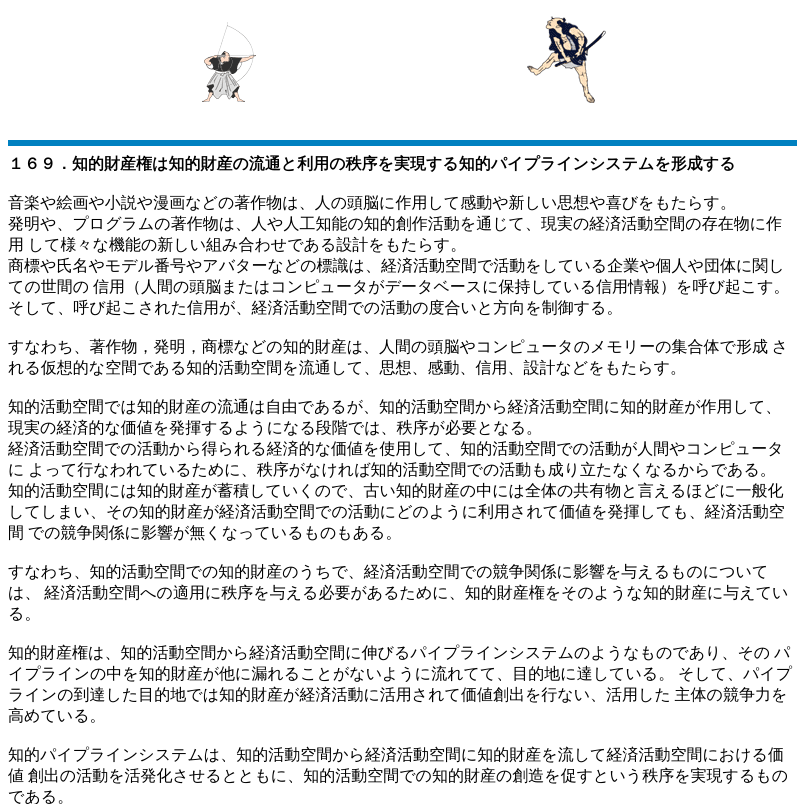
import math
import cairo

surface = cairo.ImageSurface(cairo.FORMAT_RGB24, 805, 804)
c = cairo.Context(surface)
options = cairo.FontOptions()
options.set_hint_metrics(cairo.HINT_METRICS_OFF)
options.set_hint_style(cairo.HINT_STYLE_NONE)
c.set_font_options(options)
c.set_miter_limit(4)
def C(code):
 c.set_source_rgb(*(v / 255 for v in bytes.fromhex(code[-6:])))
def F(family, size, italic, bold):
 c.select_font_face(family, cairo.FONT_SLANT_ITALIC if italic else cairo.FONT_SLANT_NORMAL, cairo.FONT_WEIGHT_BOLD if bold else cairo.FONT_WEIGHT_NORMAL)
 c.set_font_size(size)
def T(x, y, s):
 c.move_to(x, y)
 c.show_text(s)
def L(x, y, s, letter, word):
 c.move_to(x, y)
 for ch in s:
  c.show_text(ch)
  c.rel_move_to(letter + word * (ch == ' '), 0)
def R(x, y, w, h):
 c.rectangle(x, y, w, h)
 c.fill()
def I(path, x, y, w, h):
 c.save()
 c.set_source_surface(cairo.ImageSurface.create_from_png(path), x, y)
 c.rectangle(x, y, w, h)
 c.fill()
 c.restore()
C('ffffff')
c.paint()
I('1.png',202,22,54,80)
I('2.png',527,16,79,87)
C('0080c0')
R(8,140,789,6)
F('WenQuanYi Zen Hei',16,0,1)
C('000000')
T(8,169,'１６９．知的財産権は知的財産の流通と利用の秩序を実現する知的パイプラインシステムを形成する')
F('WenQuanYi Zen Hei Medium',16,0,0)
T(8,208,'音楽や絵画や小説や漫画などの著作物は、人の頭脳に作用して感動や新しい思想や喜びをもたらす。')
T(8,229,'発明や、プログラムの著作物は、人や人工知能の知的創作活動を通じて、現実の経済活動空間の存在物に作')
L(8,250,'用 して様々な機能の新しい組み合わせである設計をもたらす。',0,-1)
T(8,271,'商標や氏名やモデル番号やアバターなどの標識は、経済活動空間で活動をしている企業や個人や団体に関し')
L(8,292,'ての世間の 信用（人間の頭脳またはコンピュータがデータベースに保持している信用情報）を呼び起こす。',0,-1)
T(8,313,'そして、呼び起こされた信用が、経済活動空間での活動の度合いと方向を制御する。')
L(8,352,'すなわち、著作物，発明，商標などの知的財産は、人間の頭脳やコンピュータのメモリーの集合体で形成 さ',0,-1)
T(8,373,'れる仮想的な空間である知的活動空間を流通して、思想、感動、信用、設計などをもたらす。')
T(8,412,'知的活動空間では知的財産の流通は自由であるが、知的活動空間から経済活動空間に知的財産が作用して、')
T(8,433,'現実の経済的な価値を発揮するようになる段階では、秩序が必要となる。')
T(8,454,'経済活動空間での活動から得られる経済的な価値を使用して、知的活動空間での活動が人間やコンピュータ')
L(8,475,'に よって行なわれているために、秩序がなければ知的活動空間での活動も成り立たなくなるからである。',0,-1)
T(8,496,'知的活動空間には知的財産が蓄積していくので、古い知的財産の中には全体の共有物と言えるほどに一般化')
T(8,517,'してしまい、その知的財産が経済活動空間での活動にどのように利用されて価値を発揮しても、経済活動空')
L(8,538,'間 での競争関係に影響が無くなっているものもある。',0,-1)
T(8,577,'すなわち、知的活動空間での知的財産のうちで、経済活動空間での競争関係に影響を与えるものについて')
L(8,598,'は、 経済活動空間への適用に秩序を与える必要があるために、知的財産権をそのような知的財産に与えてい',0,-1)
T(8,619,'る。')
L(8,658,'知的財産権は、知的活動空間から経済活動空間に伸びるパイプラインシステムのようなものであり、その パ',0,-1)
L(8,679,'イプラインの中を知的財産が他に漏れることがないように流れてて、目的地に達している。 そして、パイプ',0,-1)
L(8,700,'ラインの到達した目的地では知的財産が経済活動に活用されて価値創出を行ない、活用した 主体の競争力を',0,-1)
T(8,721,'高めている。')
T(8,760,'知的パイプラインシステムは、知的活動空間から経済活動空間に知的財産を流して経済活動空間における価')
L(8,781,'値 創出の活動を活発化させるとともに、知的活動空間での知的財産の創造を促すという秩序を実現するもの',0,-1)
T(8,802,'である。')
surface.write_to_png('o.png')
